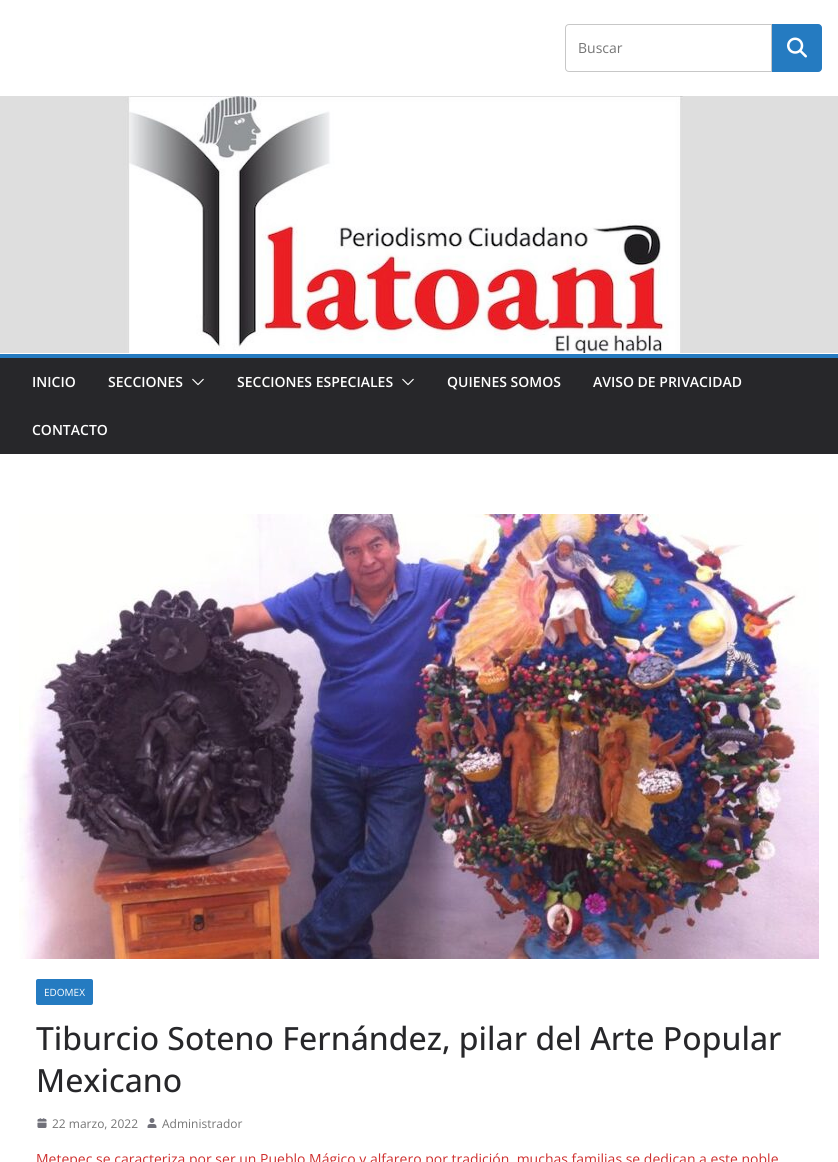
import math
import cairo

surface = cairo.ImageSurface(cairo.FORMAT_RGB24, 838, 1162)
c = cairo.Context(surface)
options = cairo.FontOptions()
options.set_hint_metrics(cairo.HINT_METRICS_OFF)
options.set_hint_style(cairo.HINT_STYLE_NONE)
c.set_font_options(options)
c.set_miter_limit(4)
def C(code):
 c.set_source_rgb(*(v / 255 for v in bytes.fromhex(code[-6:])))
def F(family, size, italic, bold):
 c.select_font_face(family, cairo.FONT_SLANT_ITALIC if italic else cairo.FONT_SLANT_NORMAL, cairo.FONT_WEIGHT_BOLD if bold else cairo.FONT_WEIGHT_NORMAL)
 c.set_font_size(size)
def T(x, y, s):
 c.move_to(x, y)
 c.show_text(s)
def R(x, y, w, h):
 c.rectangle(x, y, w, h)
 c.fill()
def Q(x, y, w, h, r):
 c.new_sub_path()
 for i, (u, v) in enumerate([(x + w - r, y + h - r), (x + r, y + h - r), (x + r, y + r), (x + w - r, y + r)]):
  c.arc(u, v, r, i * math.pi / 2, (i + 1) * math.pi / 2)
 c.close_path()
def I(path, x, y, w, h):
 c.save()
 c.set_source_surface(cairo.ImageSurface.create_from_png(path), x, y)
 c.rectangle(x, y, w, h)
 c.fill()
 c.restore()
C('ffffff')
c.paint()
c.new_path()
c.move_to(569,24.5)
c.line_to(771.5,24.5)
c.line_to(771.5,71.5)
c.line_to(569,71.5)
c.curve_to(567,71.5,565.5,70,565.5,68)
c.line_to(565.5,28)
c.curve_to(565.5,26,567,24.5,569,24.5)
c.close_path()
C('c7c7c7')
c.set_line_width(1)
c.stroke()
F('Open Sans',14,0,0)
C('757575')
T(578,53,'Buscar')
C('257bc1')
c.new_path()
c.move_to(772.5,24.5)
c.line_to(818,24.5)
c.curve_to(820,24.5,821.5,26,821.5,28)
c.line_to(821.5,68)
c.curve_to(821.5,70,820,71.5,818,71.5)
c.line_to(772.5,71.5)
c.close_path()
c.fill_preserve()
c.stroke()
I('1.png',787,37,20,21)
I('2.png',0,96,838,257)
C('27272a')
R(0,358,838,96)
C('257bc1')
R(0,354,838,4)
F('Open Sans SemiBold',14,0,0)
C('ffffff')
T(32,387,'INICIO')
T(108,387,'SECCIONES')
I('3.png',192,378,12,8)
T(237,387,'SECCIONES ESPECIALES')
I('3.png',402,378,12,8)
T(447,387,'QUIENES SOMOS')
T(593,387,'AVISO DE PRIVACIDAD')
T(32,435,'CONTACTO')
I('4.png',19,514,800,445)
C('257bc1')
Q(36,979,57,26,2)
c.fill()
F('Open Sans',10,0,0)
C('ffffff')
T(44,996,'EDOMEX')
F('Open Sans Medium',32,0,0)
C('27272a')
T(36,1050,'Tiburcio Soteno Fernández, pilar del Arte Popular')
T(36,1092,'Mexicano')
I('5.png',37,1118,10,10)
F('Open Sans',12,0,0)
C('757575')
T(52,1128,'22 marzo, 2022')
I('6.png',147,1118,10,10)
T(162,1128,'Administrador')
F('Open Sans',14,0,0)
C('cf2e2e')
T(36,1164,'Metepec se caracteriza por ser un Pueblo Mágico y alfarero por tradición, muchas familias se dedican a este noble')
surface.write_to_png('o.png')
